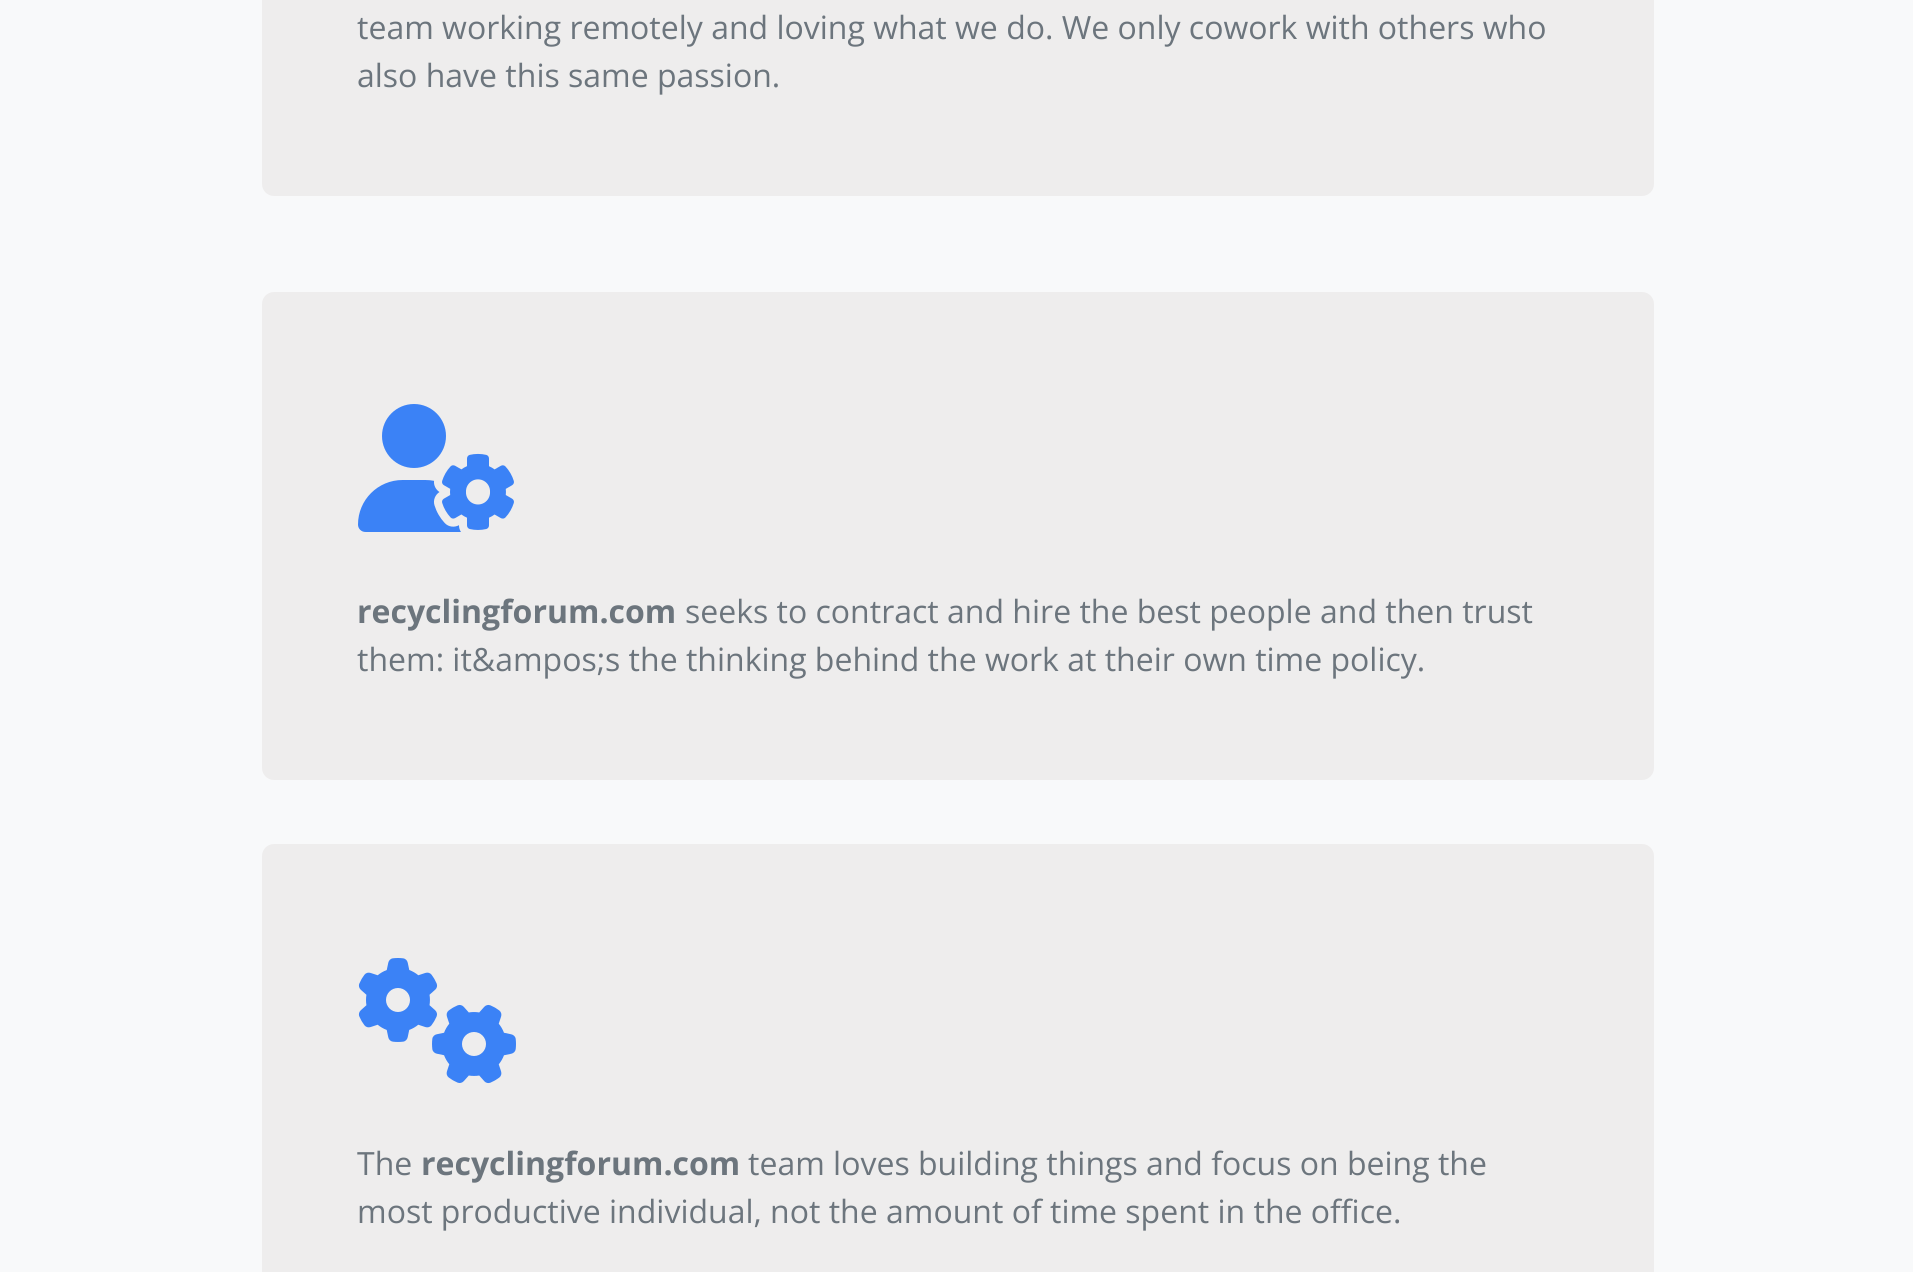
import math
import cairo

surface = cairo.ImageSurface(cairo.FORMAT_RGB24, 1913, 1272)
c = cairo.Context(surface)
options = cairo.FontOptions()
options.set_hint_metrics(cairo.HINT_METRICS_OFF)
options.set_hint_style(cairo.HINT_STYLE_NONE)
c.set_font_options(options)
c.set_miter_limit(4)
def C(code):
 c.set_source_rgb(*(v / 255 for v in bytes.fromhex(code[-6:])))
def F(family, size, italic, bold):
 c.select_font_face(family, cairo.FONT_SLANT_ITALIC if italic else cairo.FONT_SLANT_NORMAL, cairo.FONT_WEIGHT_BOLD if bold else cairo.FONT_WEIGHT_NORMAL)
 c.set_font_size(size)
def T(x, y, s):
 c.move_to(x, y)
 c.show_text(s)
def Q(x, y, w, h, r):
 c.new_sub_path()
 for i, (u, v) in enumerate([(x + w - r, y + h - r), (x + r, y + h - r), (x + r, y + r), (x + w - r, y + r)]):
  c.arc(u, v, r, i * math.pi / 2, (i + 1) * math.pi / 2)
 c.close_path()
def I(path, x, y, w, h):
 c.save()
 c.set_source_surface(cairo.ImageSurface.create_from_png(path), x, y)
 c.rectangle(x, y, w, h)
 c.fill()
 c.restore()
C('f8f9fa')
c.paint()
C('eeeded')
Q(262,-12,1392,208,12)
c.fill()
F('Open Sans',32,0,0)
C('6c757d')
T(357,39,'team working remotely and loving what we do. We only cowork with others who')
T(357,87,'also have this same passion.')
C('eeeded')
Q(262,292,1392,488,12)
c.fill()
I('1.png',358,404,156,128)
F('Open Sans',32,0,1)
C('6c757d')
T(357,623,'recyclingforum.com')
F('Open Sans',32,0,0)
T(685,623,'seeks to contract and hire the best people and then trust')
T(357,671,'them: it&ampos;s the thinking behind the work at their own time policy.')
C('eeeded')
Q(262,844,1392,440,12)
c.fill()
I('2.png',358,958,158,126)
C('6c757d')
T(357,1175,'The')
F('Open Sans',32,0,1)
T(421,1175,'recyclingforum.com')
F('Open Sans',32,0,0)
T(748,1175,'team loves building things and focus on being the')
T(357,1223,'most productive individual, not the amount of time spent in the office.')
surface.write_to_png('o.png')
